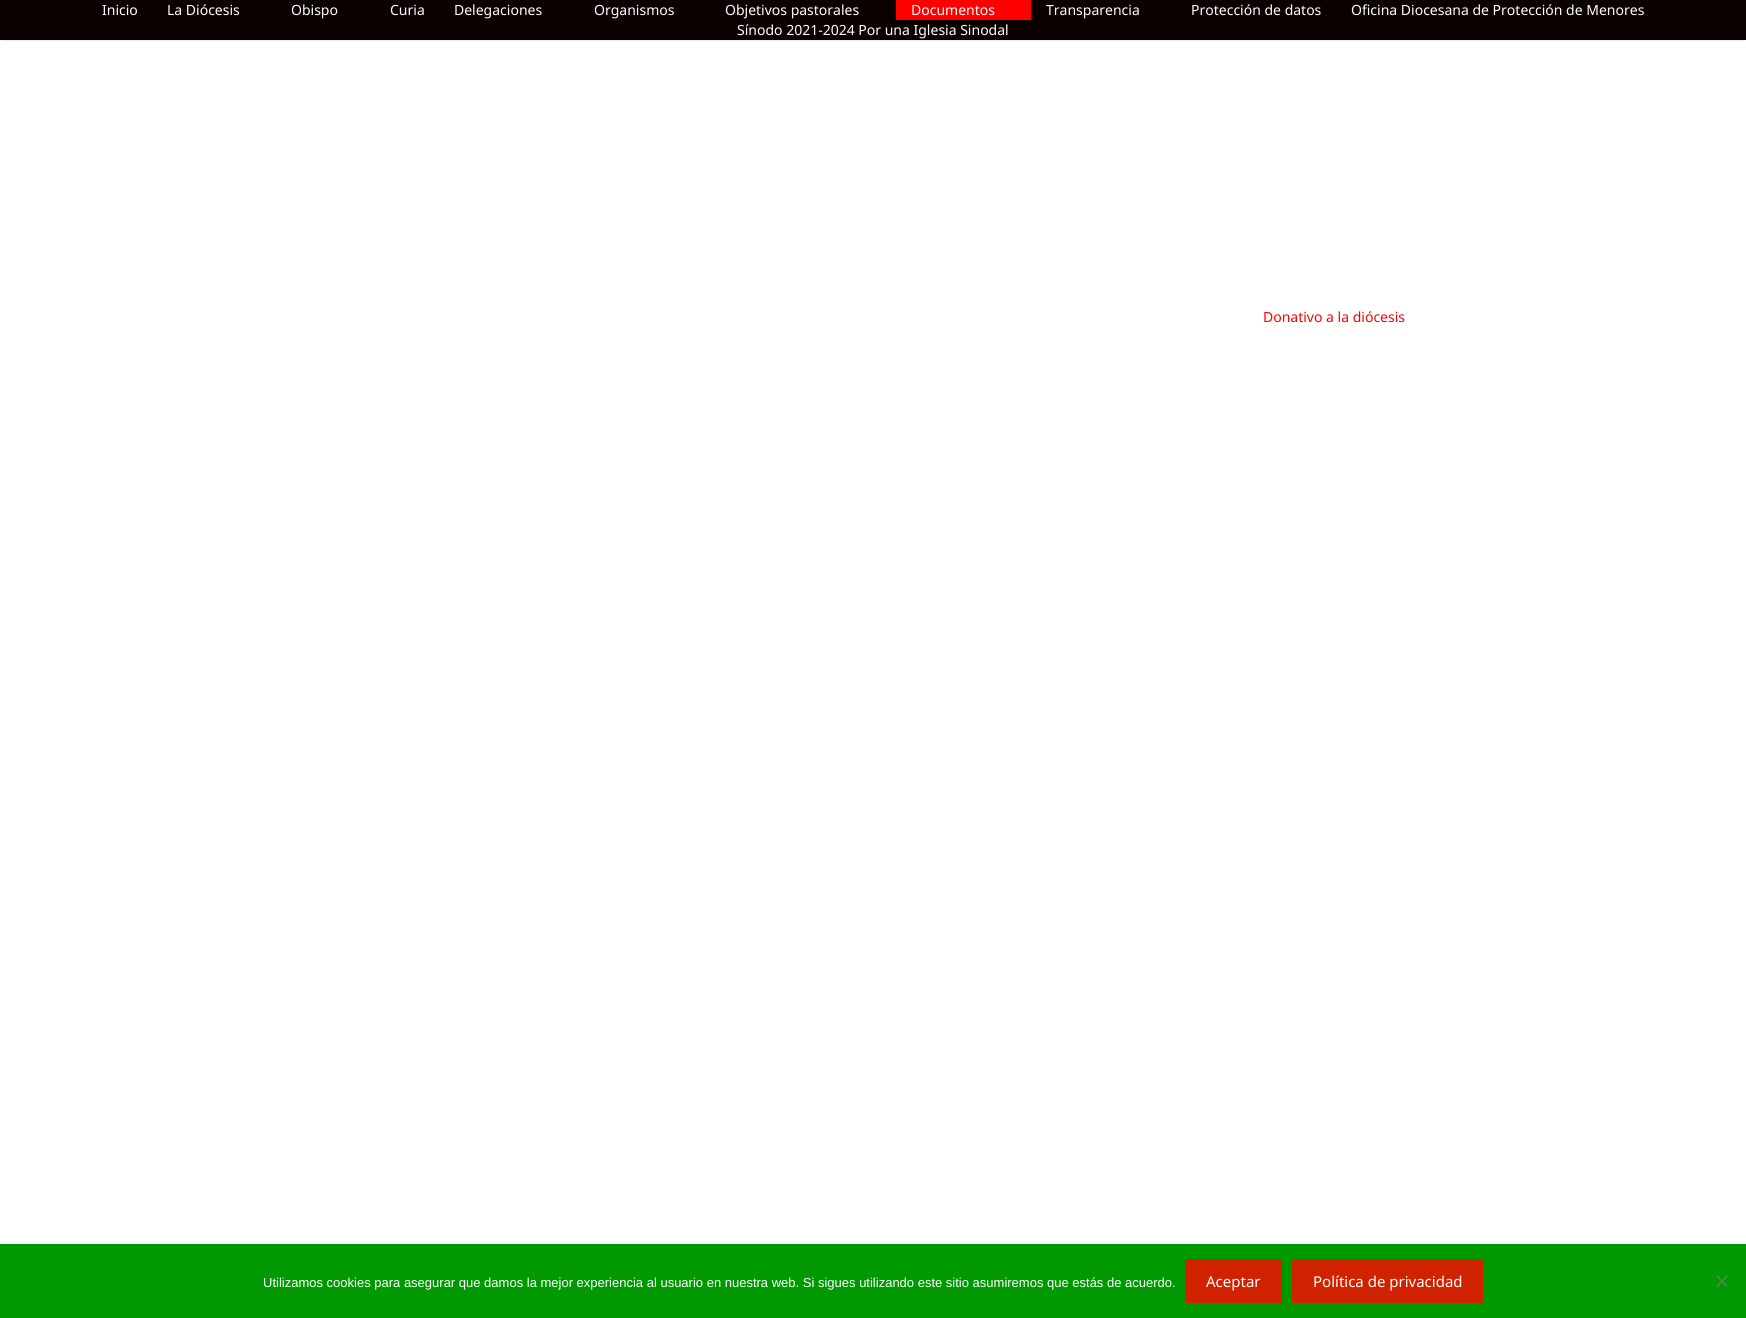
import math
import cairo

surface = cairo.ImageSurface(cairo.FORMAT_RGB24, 1746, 1318)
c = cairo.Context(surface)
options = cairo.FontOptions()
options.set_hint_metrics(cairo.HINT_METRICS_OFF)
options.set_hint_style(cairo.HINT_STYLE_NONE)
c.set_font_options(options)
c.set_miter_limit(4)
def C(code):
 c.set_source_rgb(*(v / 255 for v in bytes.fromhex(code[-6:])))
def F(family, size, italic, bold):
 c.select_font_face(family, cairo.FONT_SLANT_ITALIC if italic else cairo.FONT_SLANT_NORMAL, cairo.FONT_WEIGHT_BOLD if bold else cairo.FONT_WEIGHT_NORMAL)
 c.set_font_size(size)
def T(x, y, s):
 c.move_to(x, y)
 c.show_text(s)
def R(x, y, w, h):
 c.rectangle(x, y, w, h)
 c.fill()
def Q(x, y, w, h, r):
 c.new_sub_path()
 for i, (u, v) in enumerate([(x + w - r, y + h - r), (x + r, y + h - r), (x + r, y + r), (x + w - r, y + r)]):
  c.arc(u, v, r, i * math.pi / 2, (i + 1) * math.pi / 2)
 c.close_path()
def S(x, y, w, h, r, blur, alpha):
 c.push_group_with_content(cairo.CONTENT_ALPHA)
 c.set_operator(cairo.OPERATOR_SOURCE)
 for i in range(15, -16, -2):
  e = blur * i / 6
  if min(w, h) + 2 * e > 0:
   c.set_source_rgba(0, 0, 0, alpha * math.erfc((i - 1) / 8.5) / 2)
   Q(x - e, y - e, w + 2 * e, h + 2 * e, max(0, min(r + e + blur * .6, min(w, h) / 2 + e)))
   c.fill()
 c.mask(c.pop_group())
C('ffffff')
c.paint()
C('000000')
S(2,4,1742,36,0,1,.2)
C('0a0100')
R(0,0,1746,40)
F('Noto Sans',14,0,0)
C('ffffff')
T(102,15,'Inicio')
T(167,15,'La Diócesis')
T(291,15,'Obispo')
T(390,15,'Curia')
T(454,15,'Delegaciones')
T(594,15,'Organismos')
T(725,15,'Objetivos pastorales')
C('ff0000')
R(896,0,135,20)
C('ffffff')
T(911,15,'Documentos')
T(1046,15,'Transparencia')
T(1191,15,'Protección de datos')
T(1351,15,'Oficina Diocesana de Protección de Menores')
T(737,35,'Sínodo 2021-2024 Por una Iglesia Sinodal')
C('ff0000')
T(1263,322,'Donativo a la diócesis')
C('009902')
R(0,1244,1746,74)
F('Liberation Sans',13,0,0)
C('ffffff')
T(263,1287,'Utilizamos cookies para asegurar que damos la mejor experiencia al usuario en nuestra web. Si sigues utilizando este sitio asumiremos que estás de acuerdo.')
C('d12200')
R(1185,1259,97,44)
F('Noto Sans',15,0,0)
C('ffffff')
T(1206,1287,'Aceptar')
C('d12200')
R(1292,1259,191,44)
C('ffffff')
T(1313,1287,'Política de privacidad')
C('408d41')
c.new_path()
c.move_to(1726.5,1275)
c.line_to(1728,1276.5)
c.line_to(1717.5,1287.5)
c.line_to(1716,1286)
c.close_path()
c.fill()
c.new_path()
c.move_to(1716,1276.5)
c.line_to(1717.5,1275)
c.line_to(1728,1286)
c.line_to(1726.5,1287.5)
c.close_path()
c.fill()
surface.write_to_png('o.png')
